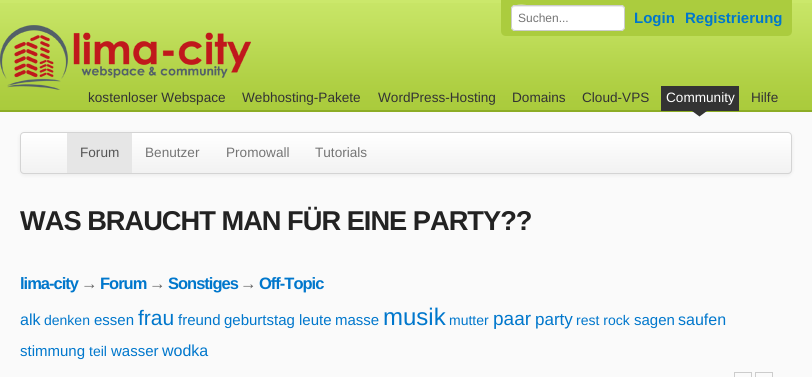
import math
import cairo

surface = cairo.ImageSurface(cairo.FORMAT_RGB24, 812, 377)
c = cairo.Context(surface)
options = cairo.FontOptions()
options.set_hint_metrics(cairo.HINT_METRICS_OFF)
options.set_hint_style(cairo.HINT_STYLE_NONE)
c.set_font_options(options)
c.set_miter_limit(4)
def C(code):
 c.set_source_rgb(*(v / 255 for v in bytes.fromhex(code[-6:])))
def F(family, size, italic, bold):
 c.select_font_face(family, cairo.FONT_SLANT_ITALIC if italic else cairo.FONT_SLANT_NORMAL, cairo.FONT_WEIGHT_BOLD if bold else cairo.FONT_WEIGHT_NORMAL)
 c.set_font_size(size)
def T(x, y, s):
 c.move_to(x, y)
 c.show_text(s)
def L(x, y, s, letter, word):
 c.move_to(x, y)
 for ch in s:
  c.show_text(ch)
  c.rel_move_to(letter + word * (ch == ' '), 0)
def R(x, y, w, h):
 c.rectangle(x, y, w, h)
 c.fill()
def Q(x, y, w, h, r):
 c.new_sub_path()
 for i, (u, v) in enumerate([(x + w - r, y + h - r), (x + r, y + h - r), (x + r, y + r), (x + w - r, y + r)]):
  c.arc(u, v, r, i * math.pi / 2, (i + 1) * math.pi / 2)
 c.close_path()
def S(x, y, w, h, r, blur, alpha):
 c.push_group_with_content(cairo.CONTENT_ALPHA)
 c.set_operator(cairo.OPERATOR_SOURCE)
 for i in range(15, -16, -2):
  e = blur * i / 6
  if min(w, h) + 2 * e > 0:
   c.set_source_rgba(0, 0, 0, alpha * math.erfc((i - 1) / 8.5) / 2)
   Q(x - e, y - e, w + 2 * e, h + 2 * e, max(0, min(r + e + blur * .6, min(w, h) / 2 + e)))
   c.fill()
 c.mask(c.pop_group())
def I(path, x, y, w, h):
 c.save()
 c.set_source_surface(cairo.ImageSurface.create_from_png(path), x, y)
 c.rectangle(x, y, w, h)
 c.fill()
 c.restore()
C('cbe86b')
c.paint()
I('1.png',0,3,812,107)
C('8dad25')
R(0,110,812,2)
C('abcc3e')
c.new_path()
c.move_to(501,0)
c.line_to(792,0)
c.line_to(792,31)
c.curve_to(792,34,790,36,787,36)
c.line_to(506,36)
c.curve_to(503,36,501,34,501,31)
c.close_path()
c.fill()
C('ffffff')
Q(511,5,114,26,4)
c.fill()
C('ececec')
c.new_path()
c.move_to(515,7)
c.line_to(621,7)
c.curve_to(623,7,624,8,624,10)
c.curve_to(624,8,623,6,621,6)
c.line_to(533,6)
c.curve_to(531,6,512,1,512,10)
c.curve_to(512,8,513,7,515,7)
c.close_path()
c.fill()
Q(511.5,5.5,113,25,3.5)
C('cccccc')
c.set_line_width(1)
c.stroke()
F('Liberation Sans',12,0,0)
C('757575')
T(518,22,'Suchen...')
F('Liberation Sans',15,0,1)
C('0077cc')
T(634,23,'Login')
T(685,23,'Registrierung')
I('2.png',0,25,251,65)
F('Liberation Sans',13.6,0,0)
C('333333')
T(88,102,'kostenloser Webspace')
T(242,102,'Webhosting-Pakete')
T(378,102,'WordPress-Hosting')
T(512,102,'Domains')
T(582,102,'Cloud-VPS')
C('fafafa')
R(0,112,812,265)
I('3.png',692,111,15,6)
C('333333')
R(661,86,78,25)
C('ffffff')
T(666,102,'Community')
C('333333')
T(751,102,'Hilfe')
C('000000')
S(20,133,772,42,4,2,.07)
c.save()
Q(20,132,772,42,4)
c.clip()
gradient = cairo.LinearGradient(406,133,406,173)
gradient.add_color_stop_rgba(0,1,1,1,1)
gradient.add_color_stop_rgba(1,0.949,0.949,0.949,1)
c.set_source(gradient)
R(20,133,772,40)
c.restore()
Q(20.5,132.5,771,41,3.5)
C('d4d4d4')
c.stroke()
C('e6e6e6')
R(67,133,65,40)
C('555555')
T(80,157,'Forum')
C('757575')
T(145,157,'Benutzer')
T(226,157,'Promowall')
T(315,157,'Tutorials')
F('Liberation Sans',27.25,0,1)
C('222222')
L(20,230,'WAS BRAUCHT MAN FÜR EINE PARTY??',-1,0)
F('Liberation Sans',16.5,0,1)
C('0077cc')
L(20,289,'lima-city',-1,0)
C('666666')
L(81,289,'→',-1,0)
C('0077cc')
L(100,289,'Forum',-1,0)
C('666666')
L(149,289,'→',-1,0)
C('0077cc')
L(168,289,'Sonstiges',-1,0)
C('666666')
L(240,289,'→',-1,0)
C('0077cc')
L(259,289,'Off-Topic',-1,0)
F('Liberation Sans',16,0,0)
T(20,325,'alk')
F('Liberation Sans',14,0,0)
T(44,325,'denken')
F('Liberation Sans',15,0,0)
T(94,325,'essen')
F('Liberation Sans',21,0,0)
T(138,325,'frau')
F('Liberation Sans',15,0,0)
T(178,325,'freund')
T(224,325,'geburtstag')
T(299,325,'leute')
T(335,325,'masse')
F('Liberation Sans',24,0,0)
T(383,325,'musik')
F('Liberation Sans',14,0,0)
T(449,325,'mutter')
F('Liberation Sans',19,0,0)
T(493,325,'paar')
F('Liberation Sans',17,0,0)
T(535,325,'party')
F('Liberation Sans',14,0,0)
T(576,325,'rest rock')
F('Liberation Sans',15,0,0)
T(634,325,'sagen')
F('Liberation Sans',16,0,0)
T(678,325,'saufen')
F('Liberation Sans',15,0,0)
T(20,356,'stimmung')
F('Liberation Sans',14,0,0)
T(89,356,'teil')
F('Liberation Sans',15,0,0)
T(111,356,'wasser')
F('Liberation Sans',16,0,0)
T(162,356,'wodka')
c.rectangle(734.5,372.5,17,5)
C('cccccc')
c.stroke()
c.rectangle(755.5,372.5,17,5)
c.stroke()
surface.write_to_png('o.png')
